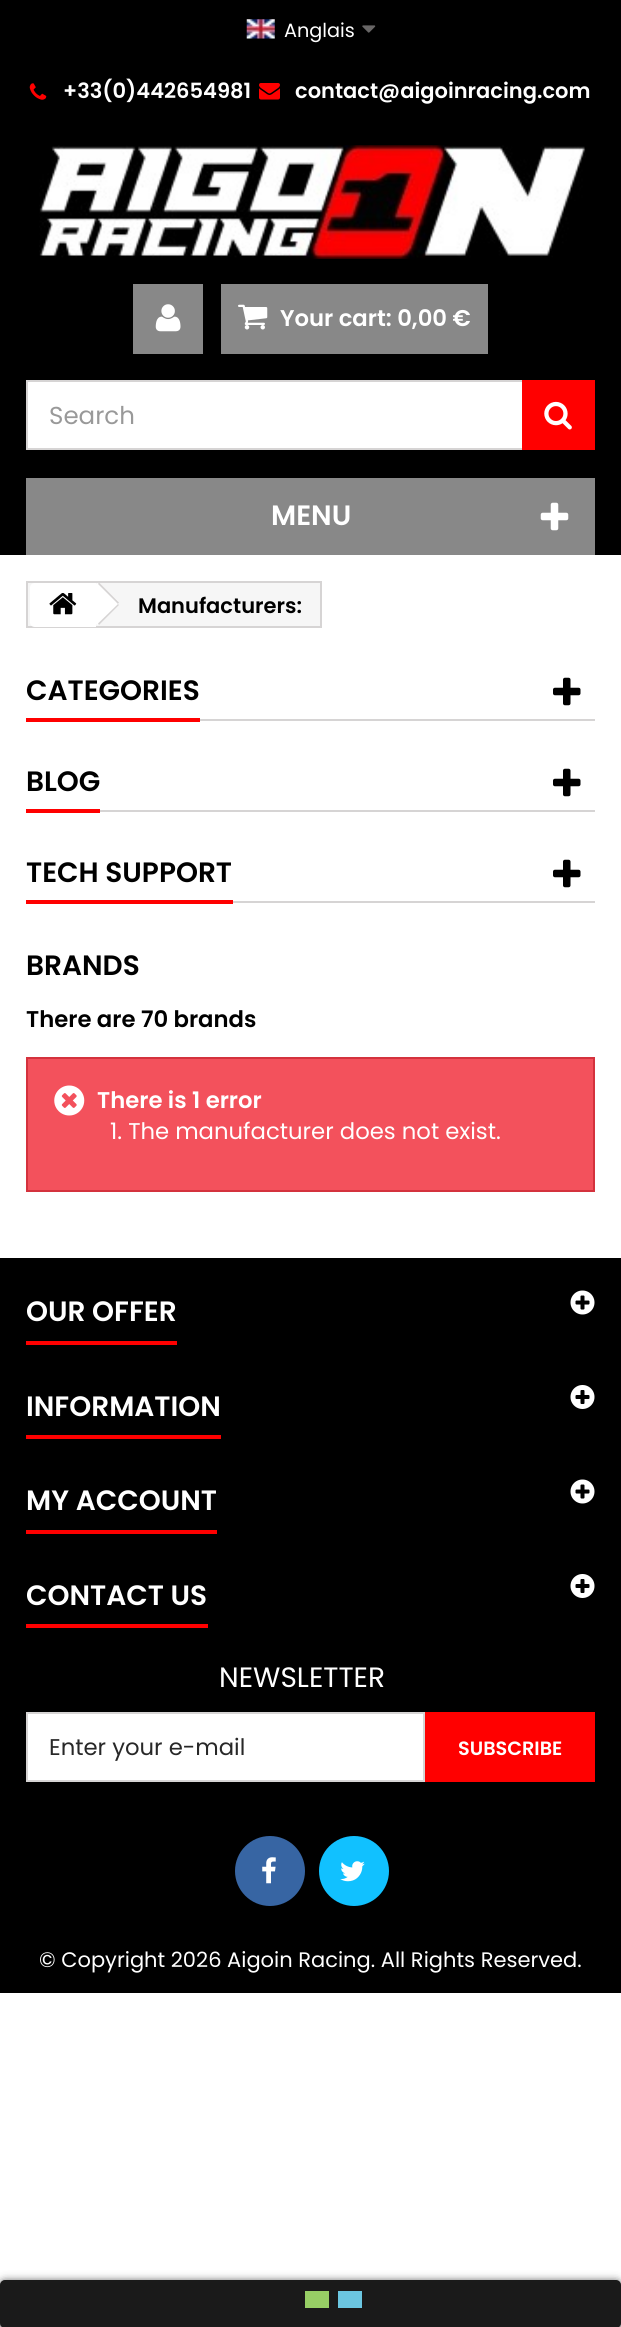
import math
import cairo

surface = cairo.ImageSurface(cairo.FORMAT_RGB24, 621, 2327)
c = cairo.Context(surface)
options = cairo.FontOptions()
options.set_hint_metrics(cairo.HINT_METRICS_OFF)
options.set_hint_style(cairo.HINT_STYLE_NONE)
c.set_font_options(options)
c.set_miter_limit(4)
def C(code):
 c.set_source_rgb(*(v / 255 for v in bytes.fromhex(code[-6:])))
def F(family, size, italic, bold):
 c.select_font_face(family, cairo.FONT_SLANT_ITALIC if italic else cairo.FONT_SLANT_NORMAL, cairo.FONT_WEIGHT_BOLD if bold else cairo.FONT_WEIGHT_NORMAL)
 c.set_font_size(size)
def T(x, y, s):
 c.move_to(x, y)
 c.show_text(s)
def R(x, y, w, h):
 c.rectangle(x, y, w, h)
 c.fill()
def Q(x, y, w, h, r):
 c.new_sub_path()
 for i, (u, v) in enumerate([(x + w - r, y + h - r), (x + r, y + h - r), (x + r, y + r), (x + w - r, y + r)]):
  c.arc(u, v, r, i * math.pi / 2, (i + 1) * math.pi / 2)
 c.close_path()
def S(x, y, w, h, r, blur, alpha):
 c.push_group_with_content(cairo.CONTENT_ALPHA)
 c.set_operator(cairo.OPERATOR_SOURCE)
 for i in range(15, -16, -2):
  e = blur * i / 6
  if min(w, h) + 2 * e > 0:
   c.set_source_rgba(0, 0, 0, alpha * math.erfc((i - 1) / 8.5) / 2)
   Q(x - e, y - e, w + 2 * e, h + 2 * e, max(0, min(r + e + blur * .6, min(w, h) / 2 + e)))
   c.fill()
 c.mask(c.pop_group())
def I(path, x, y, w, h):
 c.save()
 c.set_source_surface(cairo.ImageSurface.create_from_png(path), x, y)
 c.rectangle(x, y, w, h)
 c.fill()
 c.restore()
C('ffffff')
c.paint()
C('000000')
R(0,0,621,555)
I('1.png',246,19,29,20)
F('Poppins',19.25,0,0)
C('ffffff')
T(284,37,'Anglais')
I('2.png',362,25,14,8)
I('3.png',29,83,18,17)
F('Poppins SemiBold',21,0,0)
T(63,98,'+33(0)442654981')
I('4.png',259,83,21,17)
T(295,98,'contact@aigoinracing.com')
I('5.png',39,145,547,114)
C('888888')
R(133,284,70,70)
I('6.png',155,304,26,28)
R(221,284,267,70)
I('7.png',238,304,30,26)
F('Poppins SemiBold',22.75,0,0)
C('ffffff')
T(280,326,'Your cart: 0,00 €')
R(28,382,494,66)
c.rectangle(27,381,567,68)
C('d6d4d4')
c.stroke()
F('Poppins',24.5,0,0)
C('999999')
T(49,424,'Search')
C('ff0000')
R(522,380,73,70)
I('8.png',544,401,28,29)
C('1a1a1a')
S(0,2282,621,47,5,4.5,1)
C('1a1a1a')
Q(1,2281,619,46,4)
c.fill_preserve()
c.stroke()
C('97ce65')
R(305,2291,24,17)
C('6bc6e1')
R(338,2291,24,17)
C('888888')
R(26,478,569,77)
F('Poppins SemiBold',28,0,0)
C('ffffff')
T(271,525,'MENU')
I('9.png',540,502,29,29)
C('f6f6f6')
c.rectangle(27,582,294,45)
c.fill_preserve()
C('d6d4d4')
c.stroke()
C('ffffff')
c.new_path()
c.move_to(35,583)
c.line_to(96,583)
c.line_to(96,627)
c.line_to(35,627)
c.curve_to(32,627,30,625,30,622)
c.line_to(30,588)
c.curve_to(30,585,32,583,35,583)
c.close_path()
c.fill()
I('10.png',49,593,28,22)
c.new_path()
c.move_to(100,584)
c.line_to(118,601)
c.curve_to(119,603,119,605,118,606)
c.line_to(100,624)
c.curve_to(99,625,97,625,96,624)
c.line_to(78,606)
c.curve_to(77,605,77,603,78,601)
c.line_to(96,584)
c.curve_to(97,583,99,583,100,584)
c.close_path()
c.fill()
C('d6d4d4')
c.new_path()
c.move_to(99,582.5)
c.line_to(119,602.5)
c.line_to(118,604)
c.line_to(98,584)
c.close_path()
c.move_to(118,604)
c.line_to(119,605)
c.line_to(99,625)
c.line_to(98,623.5)
c.close_path()
c.fill()
F('Poppins SemiBold',21,0,0)
C('000000')
T(138,613,'Manufacturers:')
C('d6d4d4')
R(200,719,395,2)
C('ff0000')
R(26,718,174,4)
F('Poppins SemiBold',28,0,0)
C('000000')
T(26,700,'CATEGORIES')
I('11.png',553,677,28,29)
C('d6d4d4')
R(100,810,495,2)
C('ff0000')
R(26,809,74,4)
C('000000')
T(26,791,'BLOG')
I('11.png',553,768,28,29)
C('d6d4d4')
R(233,901,362,2)
C('ff0000')
R(26,900,207,4)
C('000000')
T(26,882,'TECH SUPPORT')
I('11.png',553,859,28,29)
T(26,975,'BRANDS')
F('Poppins SemiBold',22.75,0,0)
T(26,1027,'There are 70 brands')
C('f3515c')
c.rectangle(27,1058,567,133)
c.fill_preserve()
C('d4323d')
c.stroke()
I('12.png',54,1085,31,31)
C('ffffff')
T(97,1108,'There is 1 error')
F('Poppins',22.75,0,0)
T(110,1139,'1. The manufacturer does not exist.')
C('000000')
R(0,1258,621,735)
C('ff0000')
R(26,1341,151,4)
F('Poppins SemiBold',28,0,0)
C('ffffff')
T(26,1321,'OUR OFFER')
I('13.png',570,1290,25,25)
C('ff0000')
R(26,1435,195,4)
C('ffffff')
T(26,1416,'INFORMATION')
I('14.png',570,1385,25,24)
C('ff0000')
R(26,1530,191,4)
C('ffffff')
T(26,1510,'MY ACCOUNT')
I('13.png',570,1479,25,25)
C('ff0000')
R(26,1624,182,4)
C('ffffff')
T(26,1605,'CONTACT US')
I('14.png',570,1574,25,24)
F('Poppins',28,0,0)
T(219,1687,'NEWSLETTER')
c.rectangle(27,1713,397,68)
c.fill_preserve()
C('d6d4d4')
c.stroke()
F('Poppins',22.75,0,0)
C('282828')
T(49,1755,'Enter your e-mail')
C('ff0000')
R(425,1712,170,70)
F('Poppins SemiBold',19.25,0,0)
C('ffffff')
T(458,1755,'SUBSCRIBE')
C('3765a3')
c.new_path()
c.arc(270,1871,35,0,2 * math.pi)
c.fill()
I('15.png',262,1857,14,27)
C('11c1ff')
c.arc(354,1871,35,0,2 * math.pi)
c.fill()
I('16.png',340,1861,25,21)
F('Poppins',21,0,0)
C('ffffff')
T(39,1967,'© Copyright 2026 Aigoin Racing. All Rights Reserved.')
surface.write_to_png('o.png')
